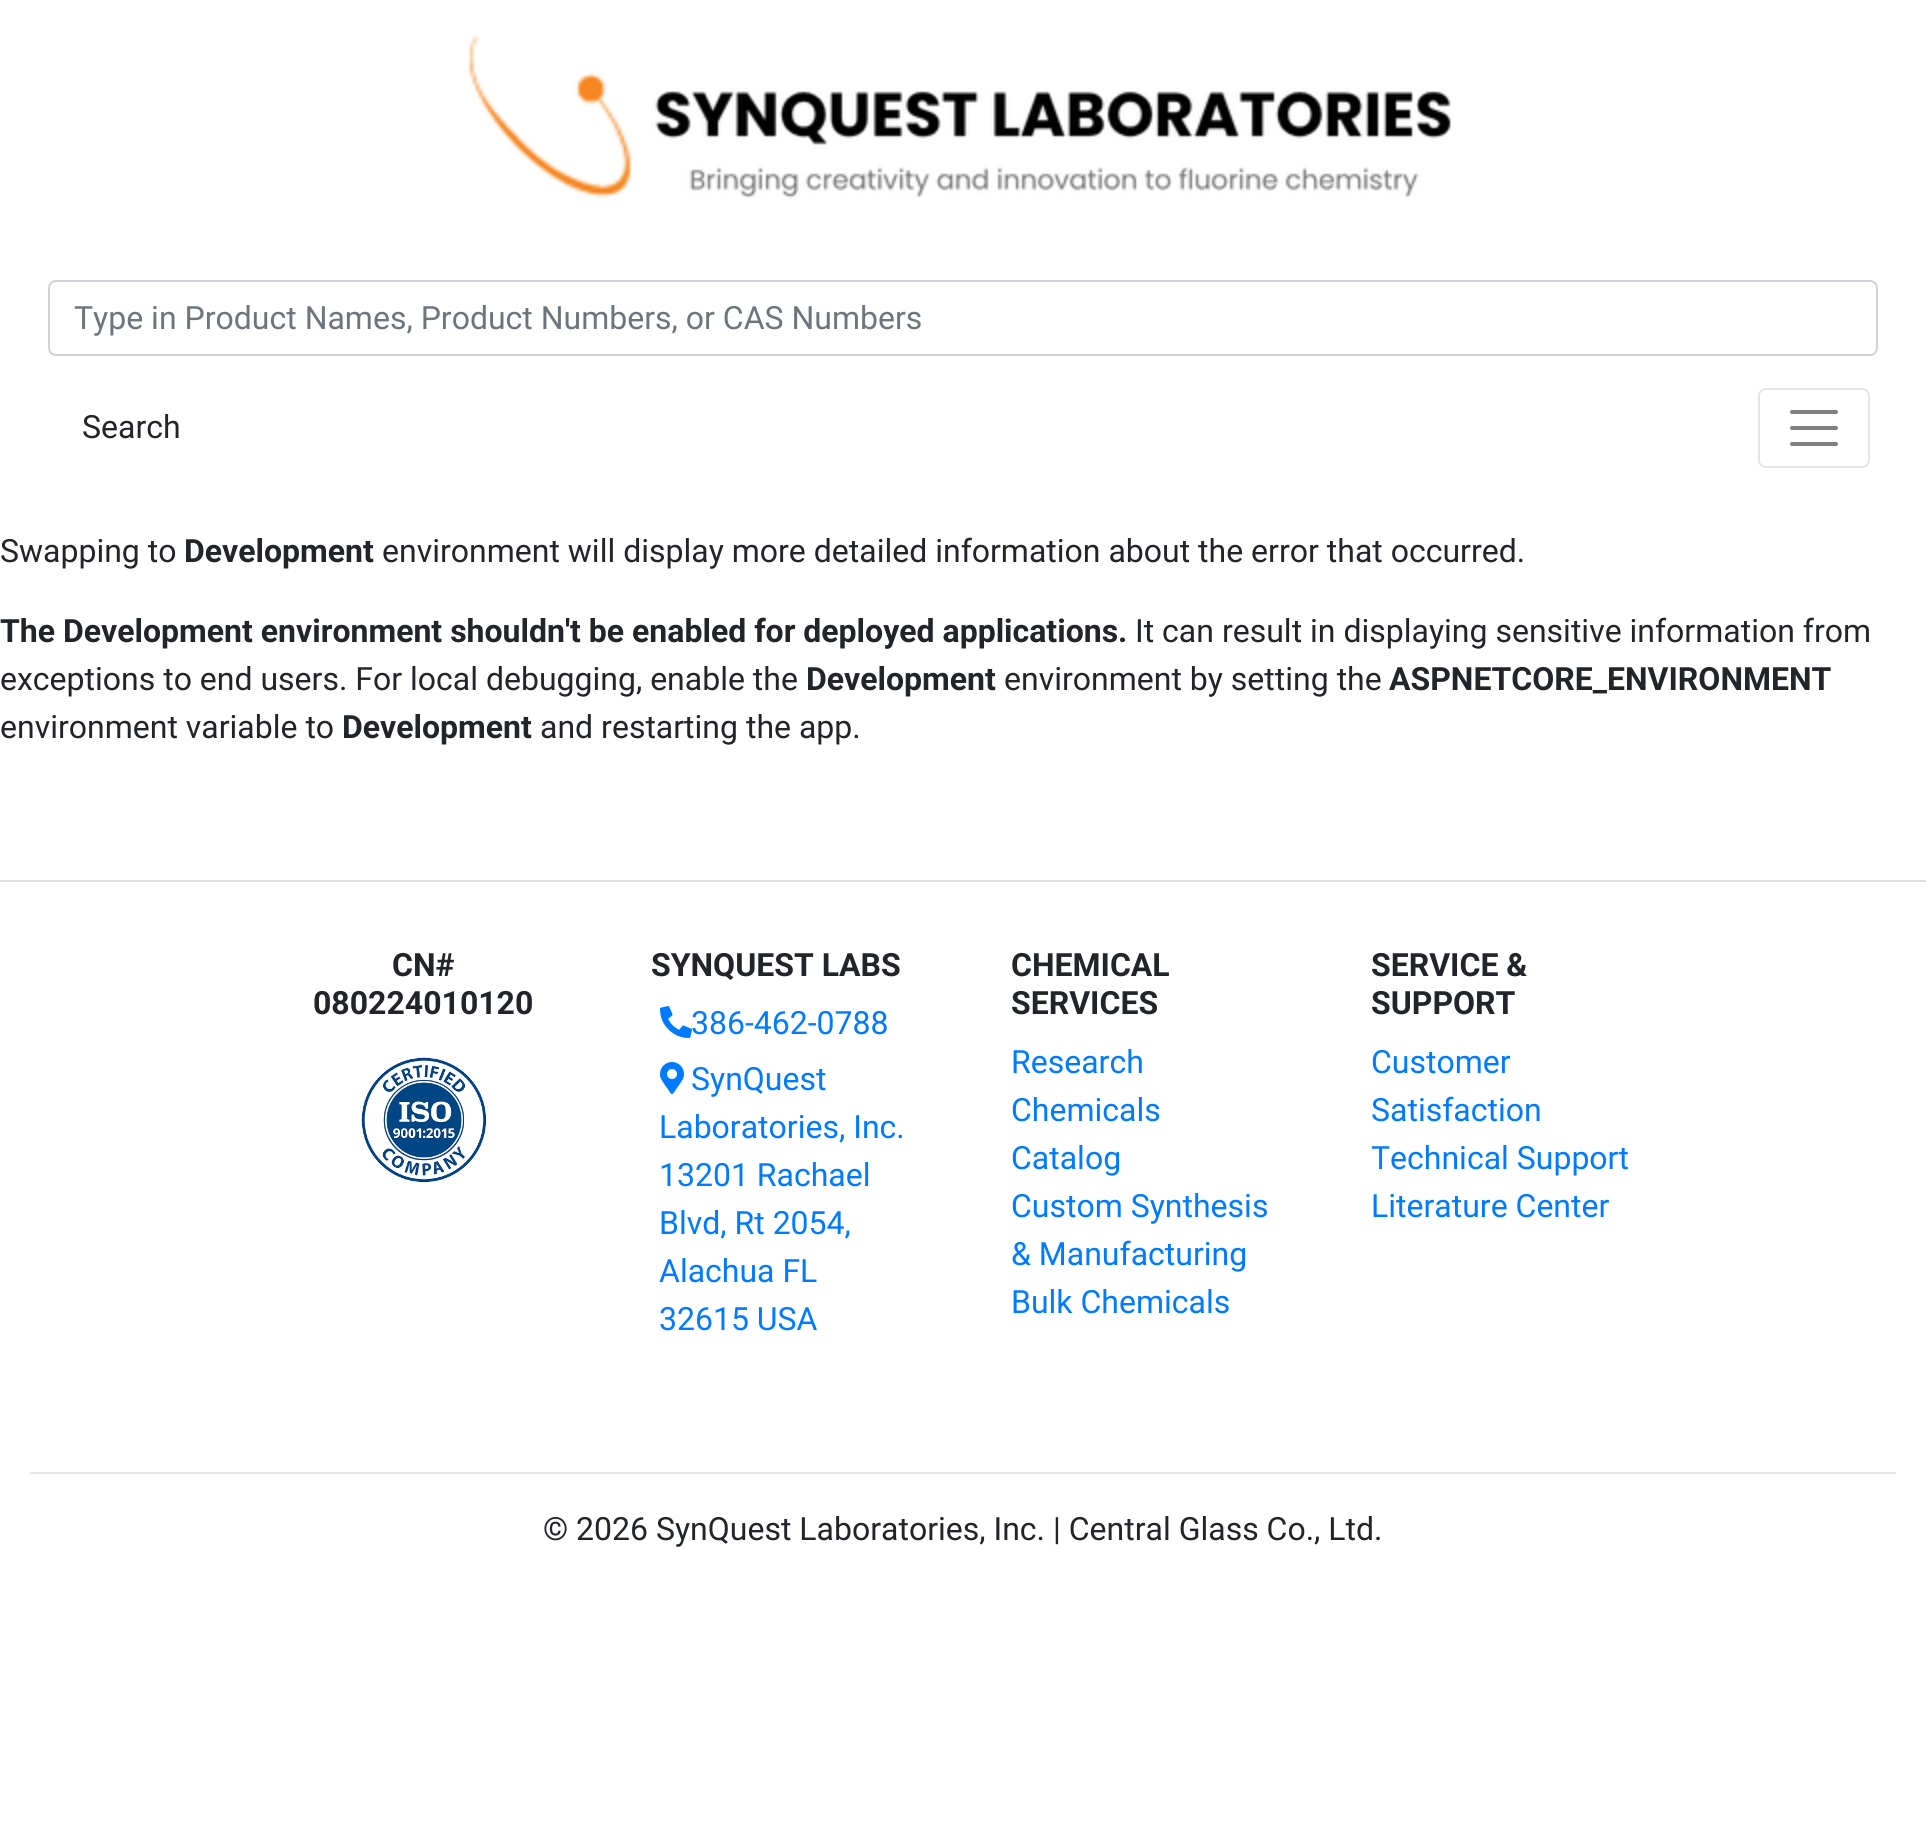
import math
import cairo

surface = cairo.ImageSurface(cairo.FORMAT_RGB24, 1926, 1845)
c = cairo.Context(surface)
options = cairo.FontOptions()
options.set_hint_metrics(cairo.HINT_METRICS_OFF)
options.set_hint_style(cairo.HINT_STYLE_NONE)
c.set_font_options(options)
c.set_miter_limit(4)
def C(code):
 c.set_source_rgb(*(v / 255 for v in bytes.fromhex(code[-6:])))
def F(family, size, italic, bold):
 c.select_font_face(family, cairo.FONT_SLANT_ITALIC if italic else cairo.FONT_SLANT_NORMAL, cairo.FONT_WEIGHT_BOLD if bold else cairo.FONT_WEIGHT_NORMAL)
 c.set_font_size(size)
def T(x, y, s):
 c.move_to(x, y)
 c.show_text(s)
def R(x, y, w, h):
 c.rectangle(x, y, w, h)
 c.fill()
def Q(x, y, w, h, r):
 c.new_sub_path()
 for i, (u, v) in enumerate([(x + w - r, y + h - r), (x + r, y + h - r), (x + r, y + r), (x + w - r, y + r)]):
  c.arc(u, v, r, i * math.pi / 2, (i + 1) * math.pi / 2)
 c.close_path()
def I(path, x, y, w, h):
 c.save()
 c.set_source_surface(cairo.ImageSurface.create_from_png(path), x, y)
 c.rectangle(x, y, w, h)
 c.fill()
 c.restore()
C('ffffff')
c.paint()
I('1.png',467,35,985,164)
Q(49,281,1828,74,7)
C('ced4da')
c.stroke()
F('Roboto',32,0,0)
C('6c757d')
T(74,329,'Type in Product Names, Product Numbers, or CAS Numbers')
C('212529')
T(82,438,'Search')
Q(1759,389,110,78,7)
C('e6e6e6')
c.stroke()
c.new_path()
c.move_to(1792,412)
c.line_to(1836,412)
c.move_to(1792,428)
c.line_to(1836,428)
c.move_to(1792,444)
c.line_to(1836,444)
C('808080')
c.set_line_width(4)
c.set_line_cap(cairo.LINE_CAP_ROUND)
c.stroke()
C('212529')
T(0,562,'Swapping to')
F('Roboto',32,0,1)
T(184,562,'Development')
F('Roboto',32,0,0)
T(382,562,'environment will display more detailed information about the error that occurred.')
F('Roboto',32,0,1)
T(0,642,'The Development environment shouldn\'t be enabled for deployed applications.')
F('Roboto',32,0,0)
T(1135,642,'It can result in displaying sensitive information from')
T(0,690,'exceptions to end users. For local debugging, enable the')
F('Roboto',32,0,1)
T(806,690,'Development')
F('Roboto',32,0,0)
T(1004,690,'environment by setting the')
F('Roboto',32,0,1)
T(1389,690,'ASPNETCORE_ENVIRONMENT')
F('Roboto',32,0,0)
T(0,738,'environment variable to')
F('Roboto',32,0,1)
T(342,738,'Development')
F('Roboto',32,0,0)
T(540,738,'and restarting the app.')
C('dee2e6')
R(0,880,1926,2)
F('Roboto',32,0,1)
C('212529')
T(392,976,'CN#')
T(313,1014,'080224010120')
I('2.png',361,1057,126,126)
T(651,976,'SYNQUEST LABS')
I('3.png',660,1006,32,32)
F('Roboto',32,0,0)
C('007bff')
T(691,1034,'386-462-0788')
I('4.png',660,1062,24,32)
T(691,1090,'SynQuest')
T(659,1138,'Laboratories, Inc.')
T(659,1186,'13201 Rachael')
T(659,1234,'Blvd, Rt 2054,')
T(659,1282,'Alachua FL')
T(659,1330,'32615 USA')
F('Roboto',32,0,1)
C('212529')
T(1011,976,'CHEMICAL')
T(1011,1014,'SERVICES')
F('Roboto',32,0,0)
C('007bff')
T(1011,1073,'Research')
T(1011,1121,'Chemicals')
T(1011,1169,'Catalog')
T(1011,1217,'Custom Synthesis')
T(1011,1265,'& Manufacturing')
T(1011,1313,'Bulk Chemicals')
F('Roboto',32,0,1)
C('212529')
T(1371,976,'SERVICE &')
T(1371,1014,'SUPPORT')
F('Roboto',32,0,0)
C('007bff')
T(1371,1073,'Customer')
T(1371,1121,'Satisfaction')
T(1371,1169,'Technical Support')
T(1371,1217,'Literature Center')
C('e6e6e6')
R(30,1472,1866,2)
C('212529')
T(543,1540,'© 2026 SynQuest Laboratories, Inc. | Central Glass Co., Ltd.')
surface.write_to_png('o.png')
